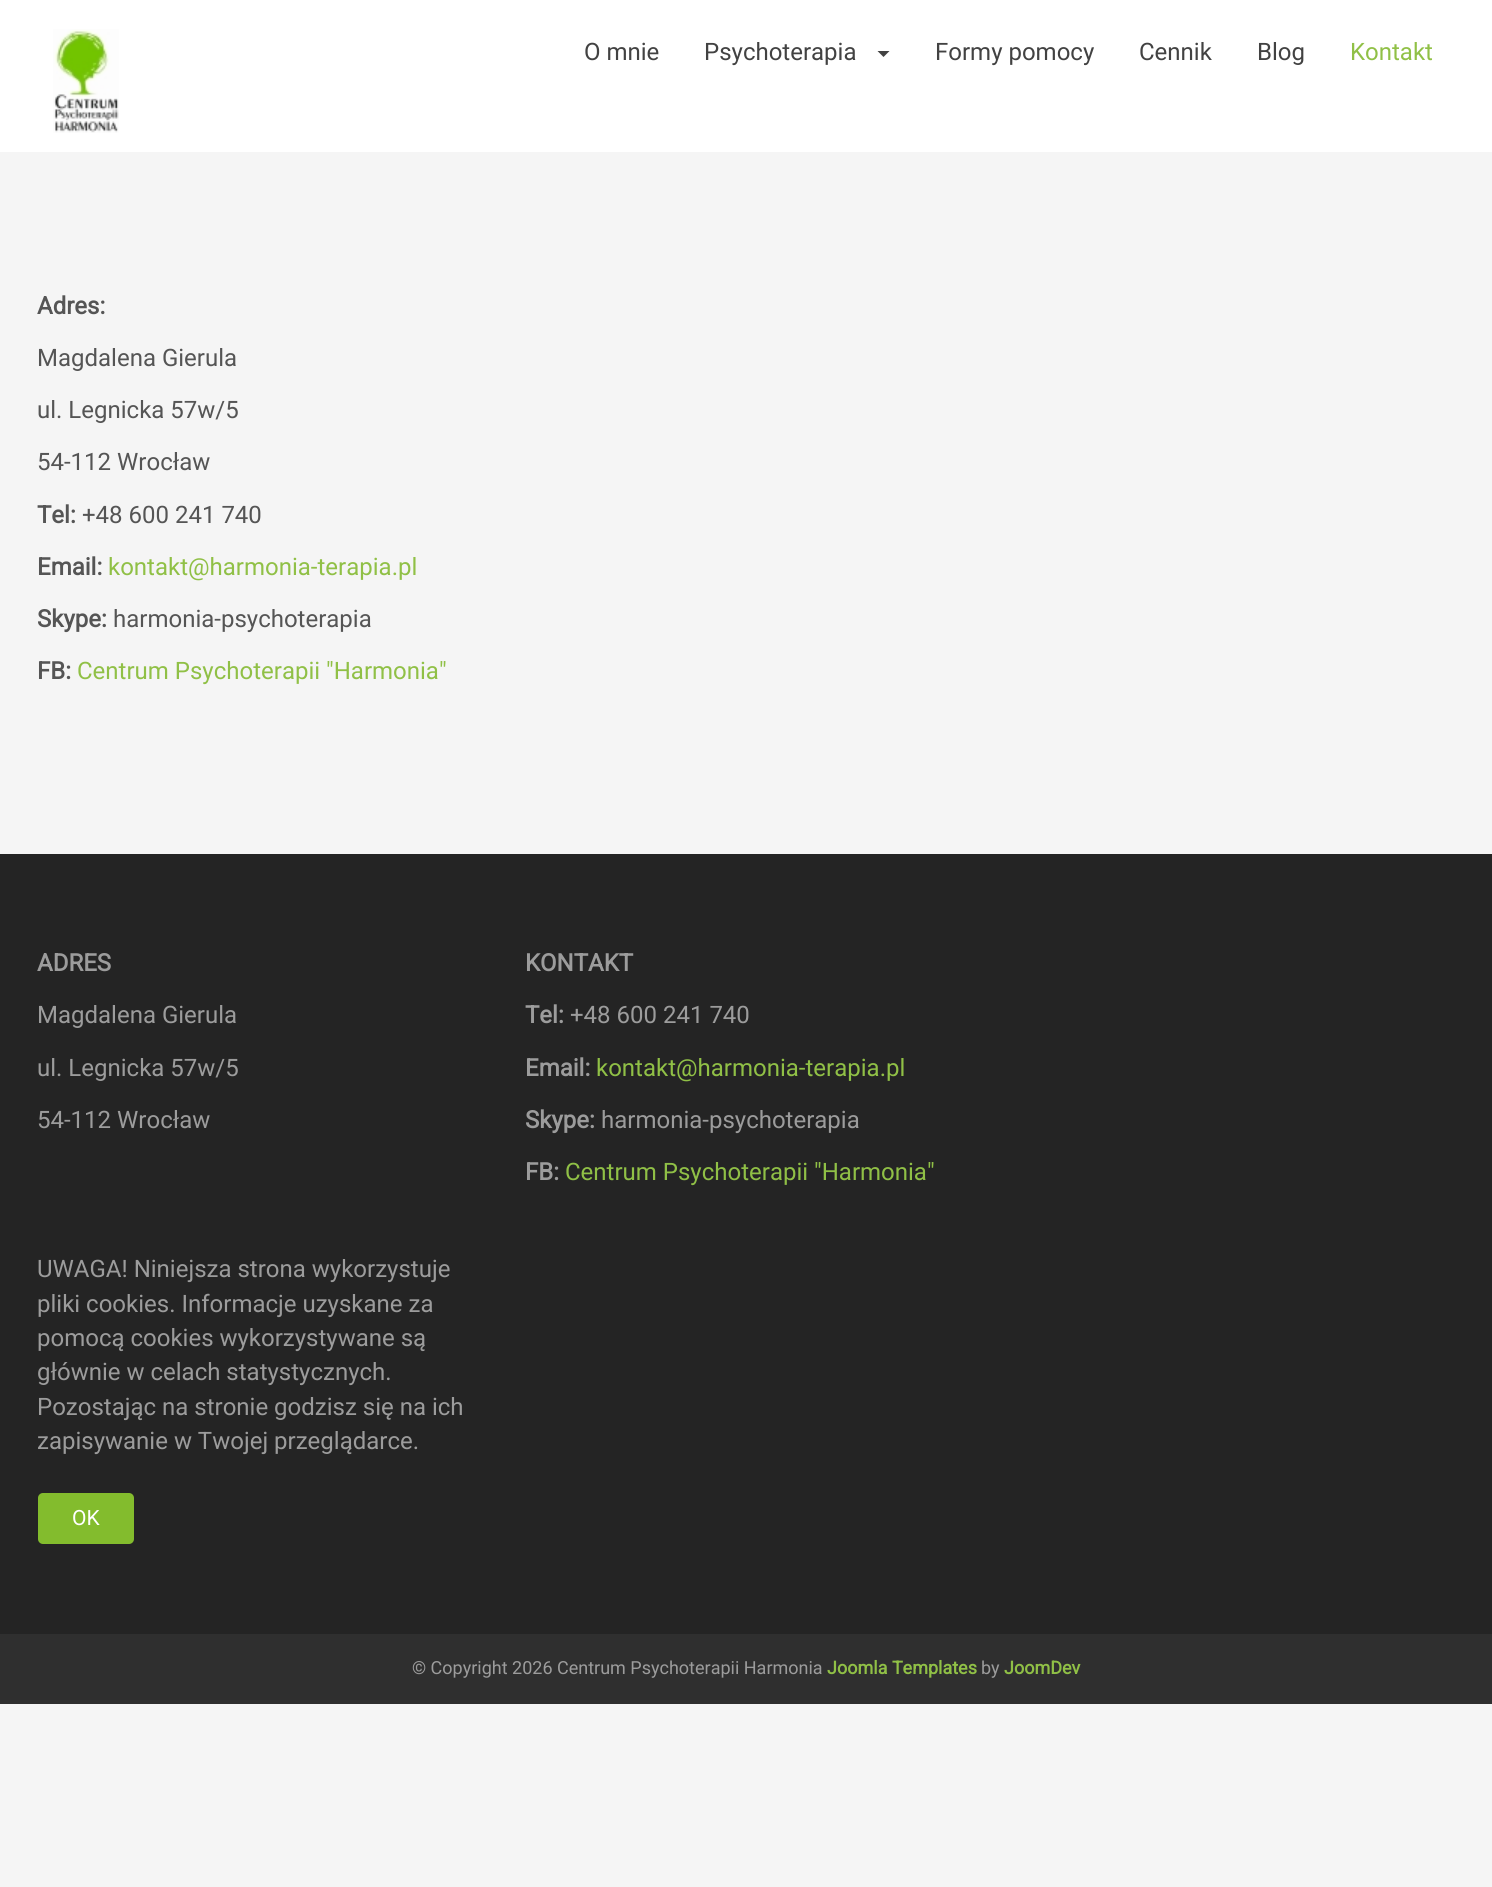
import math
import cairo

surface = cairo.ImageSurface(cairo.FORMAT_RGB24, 1492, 1887)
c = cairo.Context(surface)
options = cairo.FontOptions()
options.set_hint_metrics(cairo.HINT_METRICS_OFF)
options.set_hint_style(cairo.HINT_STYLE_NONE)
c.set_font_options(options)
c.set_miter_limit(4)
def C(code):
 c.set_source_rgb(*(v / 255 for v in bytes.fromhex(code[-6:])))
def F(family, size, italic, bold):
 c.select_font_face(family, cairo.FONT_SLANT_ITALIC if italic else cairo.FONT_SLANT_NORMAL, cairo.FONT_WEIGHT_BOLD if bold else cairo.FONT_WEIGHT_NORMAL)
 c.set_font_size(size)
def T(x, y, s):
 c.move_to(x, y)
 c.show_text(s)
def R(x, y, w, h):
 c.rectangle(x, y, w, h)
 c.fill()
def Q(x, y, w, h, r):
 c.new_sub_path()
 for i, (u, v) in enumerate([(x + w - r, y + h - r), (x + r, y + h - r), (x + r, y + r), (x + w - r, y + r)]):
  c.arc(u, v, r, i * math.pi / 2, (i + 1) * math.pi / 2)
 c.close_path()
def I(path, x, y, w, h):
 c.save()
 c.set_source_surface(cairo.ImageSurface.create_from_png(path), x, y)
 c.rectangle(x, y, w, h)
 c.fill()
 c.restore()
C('f5f5f5')
c.paint()
C('ffffff')
R(0,0,1492,152)
I('1.png',53,29,66,104)
F('Roboto',24,0,0)
C('424242')
T(584,60,'O mnie')
T(704,60,'Psychoterapia')
c.new_path()
c.move_to(877.5,51)
c.line_to(889.5,51)
c.line_to(883.5,57)
c.close_path()
c.fill()
T(935,60,'Formy pomocy')
T(1139,60,'Cennik')
T(1257,60,'Blog')
C('90c046')
T(1350,60,'Kontakt')
F('Roboto',24,0,1)
C('555555')
T(37,314,'Adres:')
F('Roboto',24,0,0)
T(37,366,'Magdalena Gierula')
T(37,418,'ul. Legnicka 57w/5')
T(37,470,'54-112 Wrocław')
F('Roboto',24,0,1)
T(37,523,'Tel:')
F('Roboto',24,0,0)
T(82,523,'+48 600 241 740')
F('Roboto',24,0,1)
T(37,575,'Email:')
F('Roboto',24,0,0)
C('90c046')
T(108,575,'kontakt@harmonia-terapia.pl')
F('Roboto',24,0,1)
C('555555')
T(37,627,'Skype:')
F('Roboto',24,0,0)
T(113,627,'harmonia-psychoterapia')
F('Roboto',24,0,1)
T(37,679,'FB:')
F('Roboto',24,0,0)
C('90c046')
T(77,679,'Centrum Psychoterapii "Harmonia"')
C('242424')
R(0,854,1492,780)
F('Roboto',24,0,1)
C('9c9c9c')
T(37,971,'ADRES')
F('Roboto',24,0,0)
T(37,1023,'Magdalena Gierula')
T(37,1076,'ul. Legnicka 57w/5')
T(37,1128,'54-112 Wrocław')
T(37,1277,'UWAGA! Niniejsza strona wykorzystuje')
T(37,1312,'pliki cookies. Informacje uzyskane za')
T(37,1346,'pomocą cookies wykorzystywane są')
T(37,1380,'głównie w celach statystycznych.')
T(37,1415,'Pozostając na stronie godzisz się na ich')
T(37,1449,'zapisywanie w Twojej przeglądarce.')
C('83bc2d')
Q(38,1493,96,51,5)
c.fill()
F('Roboto',21,0,0)
C('ffffff')
T(72,1525,'OK')
F('Roboto',24,0,1)
C('9c9c9c')
T(525,971,'KONTAKT')
T(525,1023,'Tel:')
F('Roboto',24,0,0)
T(570,1023,'+48 600 241 740')
F('Roboto',24,0,1)
T(525,1076,'Email:')
F('Roboto',24,0,0)
C('90c046')
T(596,1076,'kontakt@harmonia-terapia.pl')
F('Roboto',24,0,1)
C('9c9c9c')
T(525,1128,'Skype:')
F('Roboto',24,0,0)
T(601,1128,'harmonia-psychoterapia')
F('Roboto',24,0,1)
T(525,1180,'FB:')
F('Roboto',24,0,0)
C('90c046')
T(565,1180,'Centrum Psychoterapii "Harmonia"')
C('2f2f2f')
R(0,1634,1492,70)
F('Roboto',18,0,0)
C('9c9c9c')
T(412,1674,'© Copyright 2026 Centrum Psychoterapii Harmonia')
F('Roboto',18,0,1)
C('90c046')
T(827,1674,'Joomla Templates')
F('Roboto',18,0,0)
C('9c9c9c')
T(981,1674,'by')
F('Roboto',18,0,1)
C('90c046')
T(1004,1674,'JoomDev')
surface.write_to_png('o.png')
